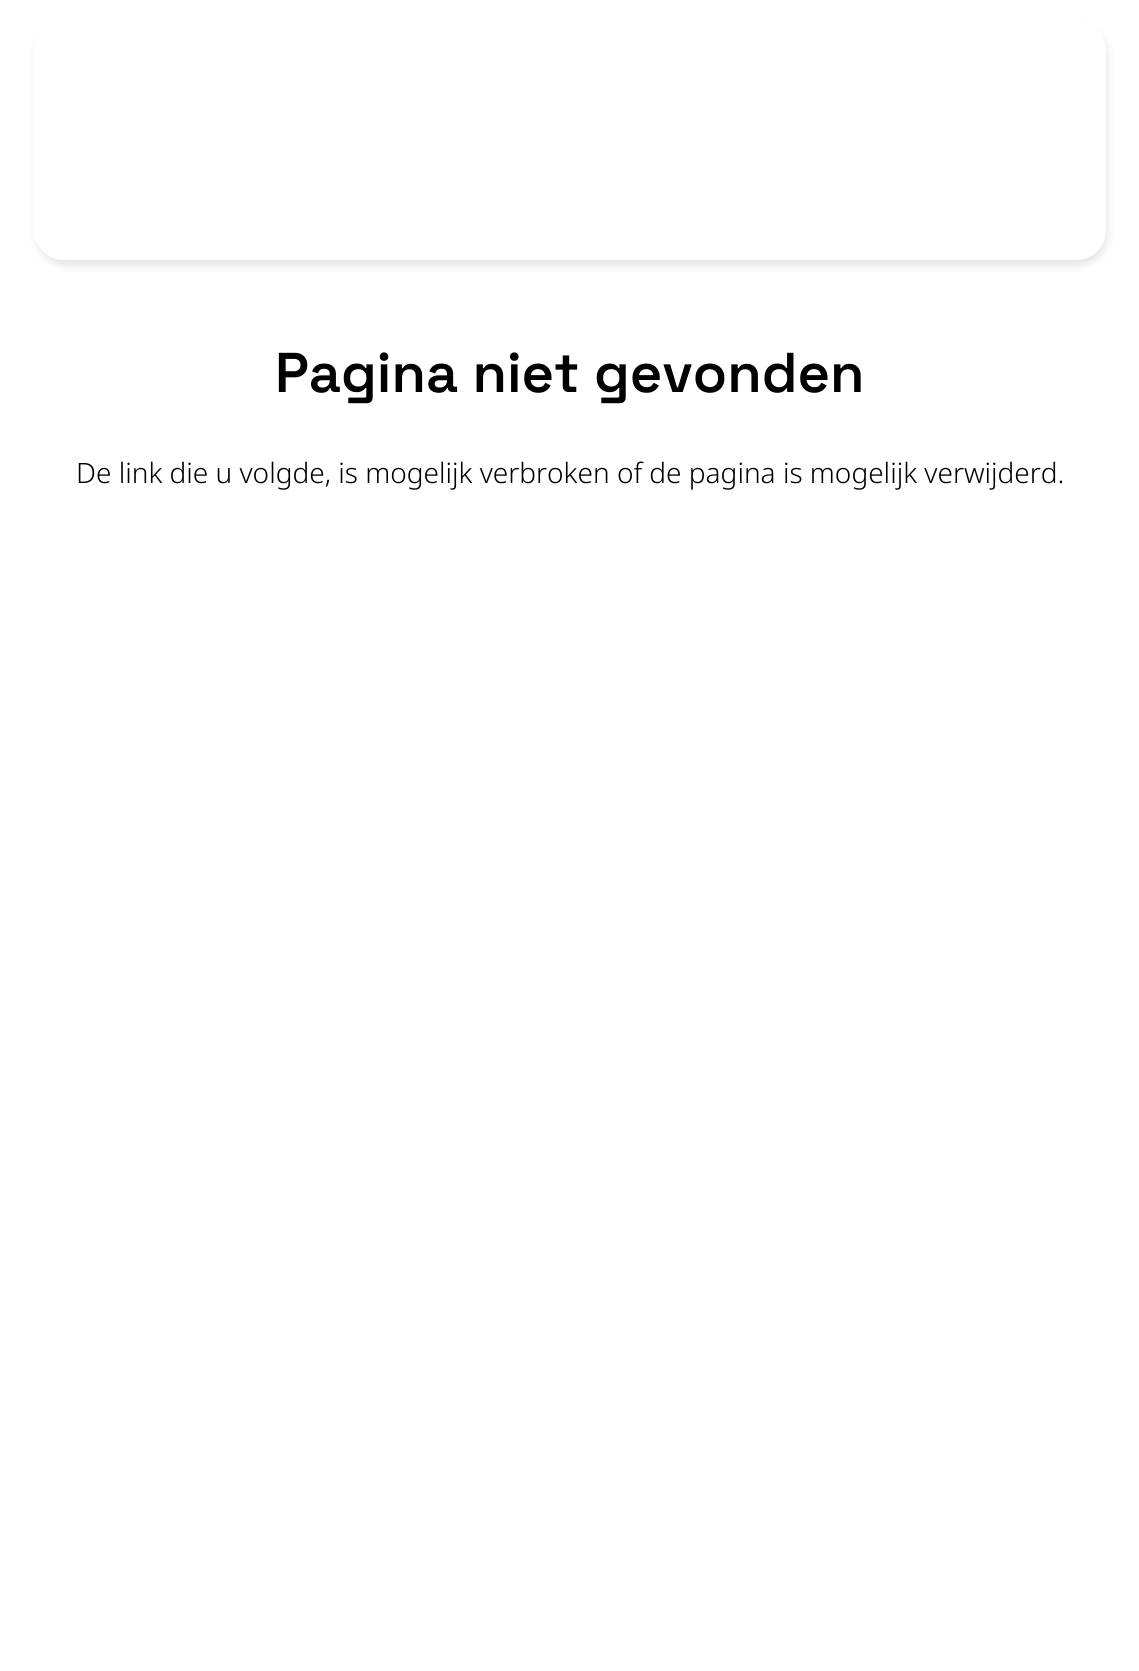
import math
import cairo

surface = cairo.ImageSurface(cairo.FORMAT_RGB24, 1139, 1671)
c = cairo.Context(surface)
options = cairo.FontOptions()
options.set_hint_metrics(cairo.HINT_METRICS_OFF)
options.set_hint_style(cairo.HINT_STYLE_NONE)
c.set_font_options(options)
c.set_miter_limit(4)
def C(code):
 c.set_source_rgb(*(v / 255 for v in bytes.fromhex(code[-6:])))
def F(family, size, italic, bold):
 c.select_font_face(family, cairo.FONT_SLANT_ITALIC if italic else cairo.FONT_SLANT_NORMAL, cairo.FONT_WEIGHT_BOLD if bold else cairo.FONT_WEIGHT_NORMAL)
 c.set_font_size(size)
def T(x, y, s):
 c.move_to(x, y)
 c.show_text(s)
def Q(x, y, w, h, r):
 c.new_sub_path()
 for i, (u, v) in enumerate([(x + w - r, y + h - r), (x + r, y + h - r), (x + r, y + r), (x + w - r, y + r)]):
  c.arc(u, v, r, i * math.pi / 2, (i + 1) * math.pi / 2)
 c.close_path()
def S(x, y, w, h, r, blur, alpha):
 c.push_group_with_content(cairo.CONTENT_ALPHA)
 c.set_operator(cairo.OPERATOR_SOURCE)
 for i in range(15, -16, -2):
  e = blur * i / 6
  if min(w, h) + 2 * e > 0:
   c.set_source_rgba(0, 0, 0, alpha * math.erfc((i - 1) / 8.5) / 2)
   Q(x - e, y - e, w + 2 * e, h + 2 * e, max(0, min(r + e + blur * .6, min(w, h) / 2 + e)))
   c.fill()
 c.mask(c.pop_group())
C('ffffff')
c.paint()
C('000000')
S(36,26,1072,240,30,4,.1)
C('ffffff')
Q(34,20,1072,240,30)
c.fill()
F('Space Grotesk SemiBold',56,0,0)
C('000000')
T(275,392,'Pagina niet gevonden')
F('Noto Sans Light',28,0,0)
T(76,483,'De link die u volgde, is mogelijk verbroken of de pagina is mogelijk verwijderd.')
surface.write_to_png('o.png')
